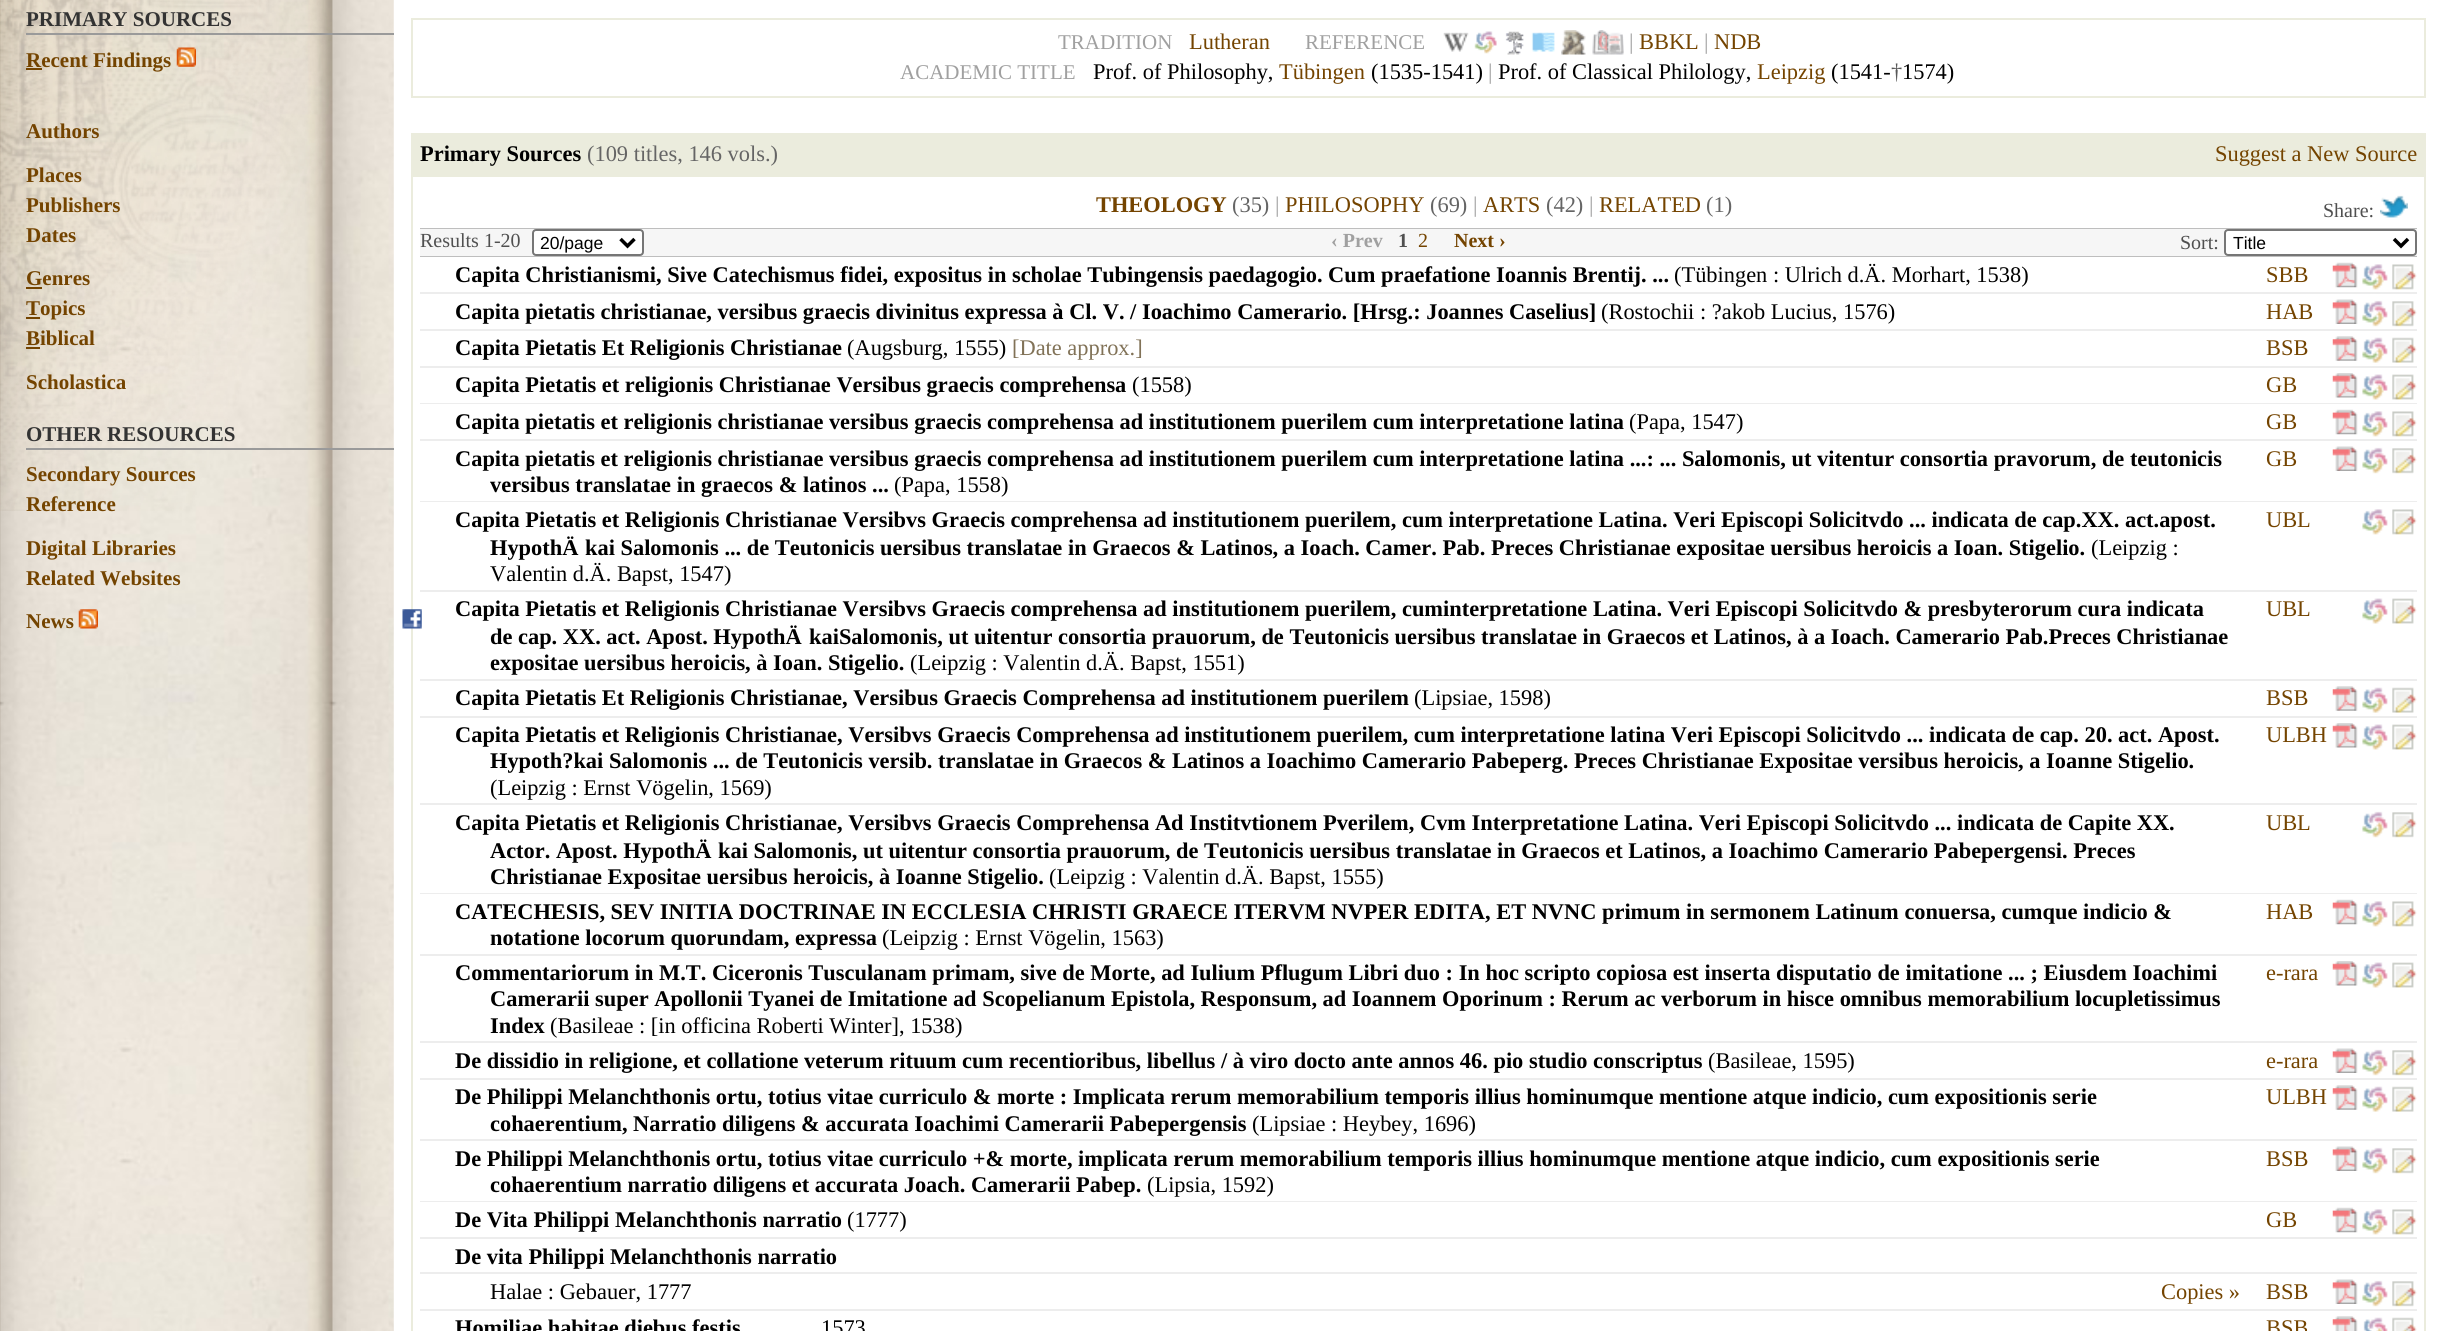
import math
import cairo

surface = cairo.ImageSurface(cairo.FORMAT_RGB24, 2443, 1331)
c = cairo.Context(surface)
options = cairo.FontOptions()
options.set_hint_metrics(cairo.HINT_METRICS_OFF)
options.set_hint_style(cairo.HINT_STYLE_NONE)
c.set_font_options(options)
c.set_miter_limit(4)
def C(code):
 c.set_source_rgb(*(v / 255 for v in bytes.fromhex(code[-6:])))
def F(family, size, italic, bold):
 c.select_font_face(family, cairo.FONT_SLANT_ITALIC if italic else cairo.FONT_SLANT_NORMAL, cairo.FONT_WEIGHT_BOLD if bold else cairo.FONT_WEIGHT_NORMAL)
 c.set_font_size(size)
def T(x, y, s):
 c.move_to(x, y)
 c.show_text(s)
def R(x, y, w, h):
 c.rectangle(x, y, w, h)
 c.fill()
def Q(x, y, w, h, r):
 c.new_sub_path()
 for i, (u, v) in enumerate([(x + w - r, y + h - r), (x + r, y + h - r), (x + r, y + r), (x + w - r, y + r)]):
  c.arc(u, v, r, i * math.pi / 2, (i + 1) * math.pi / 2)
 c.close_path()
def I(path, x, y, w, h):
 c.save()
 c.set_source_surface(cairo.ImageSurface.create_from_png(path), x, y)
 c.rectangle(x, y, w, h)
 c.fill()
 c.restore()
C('ffffff')
c.paint()
I('1.png',0,0,394,1331)
I('2.png',0,0,332,511)
C('9a9a9a')
R(26,33,368,2)
F('Liberation Serif',21,0,1)
C('333333')
T(26,26,'PRIMARY SOURCES')
C('744400')
R(26,68,16,2)
T(26,67,'Recent Findings')
I('3.png',176,47,20,20)
T(26,138,'Authors')
T(26,182,'Places')
T(26,212,'Publishers')
T(26,242,'Dates')
T(26,285,'Genres')
R(26,287,16,2)
R(26,317,14,2)
T(26,315,'Topics')
T(26,345,'Biblical')
R(26,347,14,2)
T(26,389,'Scholastica')
C('9a9a9a')
R(26,448,368,2)
C('333333')
T(26,441,'OTHER RESOURCES')
C('744400')
T(26,481,'Secondary Sources')
T(26,511,'Reference')
T(26,555,'Digital Libraries')
T(26,585,'Related Websites')
T(26,628,'News')
I('4.png',78,609,20,20)
C('ebecdd')
R(411,133,2015,1198)
C('ffffff')
R(413,177,2011,1154)
I('5.png',402,609,20,20)
c.rectangle(412,19,2013,78)
C('ebecdd')
c.stroke()
F('Liberation Serif',21,0,0)
C('a0a0a0')
T(1058,49,'TRADITION')
F('Liberation Serif',22.4,0,0)
C('744400')
T(1189,49,'Lutheran')
F('Liberation Serif',21,0,0)
C('a0a0a0')
T(1305,49,'REFERENCE')
I('6.png',1443,32,26,20)
I('7.png',1474,31,23,23)
I('8.png',1505,31,19,24)
I('9.png',1531,32,24,20)
I('10.png',1561,30,25,25)
I('11.png',1592,30,32,25)
F('Liberation Serif',22.4,0,0)
T(1629,49,'|')
C('744400')
T(1639,49,'BBKL')
C('a0a0a0')
T(1704,49,'|')
C('744400')
T(1714,49,'NDB')
F('Liberation Serif',21,0,0)
C('a0a0a0')
T(900,79,'ACADEMIC TITLE')
F('Liberation Serif',22.4,0,0)
C('000000')
T(1093,79,'Prof. of Philosophy,')
C('744400')
T(1279,79,'Tübingen')
C('000000')
T(1371,79,'(1535-1541)')
C('a0a0a0')
T(1488,79,'|')
C('000000')
T(1498,79,'Prof. of Classical Philology,')
C('744400')
T(1757,79,'Leipzig')
C('000000')
T(1831,79,'(1541-')
C('585858')
T(1891,79,'†')
C('000000')
T(1902,79,'1574)')
F('Liberation Serif',22.4,0,1)
T(420,161,'Primary Sources')
F('Liberation Serif',22.4,0,0)
C('656565')
T(587,161,'(109 titles, 146 vols.)')
C('744400')
T(2215,161,'Suggest a New Source')
C('bebebe')
R(420,228,1997,1)
F('Liberation Serif',22.4,0,1)
C('744400')
T(1096,212,'THEOLOGY')
F('Liberation Serif',22.4,0,0)
C('656565')
T(1232,212,'(35)')
C('a0a0a0')
T(1275,212,'|')
C('744400')
T(1285,212,'PHILOSOPHY')
C('656565')
T(1430,212,'(69)')
C('a0a0a0')
T(1473,212,'|')
C('744400')
T(1483,212,'ARTS')
C('656565')
T(1546,212,'(42)')
C('a0a0a0')
T(1589,212,'|')
C('744400')
T(1599,212,'RELATED')
C('656565')
T(1706,212,'(1)')
F('Liberation Serif',20,0,0)
C('505050')
T(2323,217,'Share:')
I('12.png',2380,195,28,23)
C('f6f6f6')
R(420,229,1997,27)
C('bebebe')
R(420,256,1997,1)
C('505050')
T(420,247,'Results 1-20')
C('ffffff')
Q(533,230,110,25,3)
c.fill_preserve()
C('767676')
c.stroke()
c.new_path()
c.move_to(620.5,239)
c.line_to(627.5,246)
c.line_to(634.5,239)
C('000000')
c.set_line_width(3.5)
c.stroke()
F('Liberation Sans',17.5,0,0)
T(540,249,'20/page')
F('Liberation Serif',20,0,1)
C('a0a0a0')
T(1331,247,'‹ Prev')
C('505050')
T(1398,247,'1')
F('Liberation Serif',20,0,0)
C('744400')
T(1418,247,'2')
F('Liberation Serif',20,0,1)
T(1454,247,'Next ›')
F('Liberation Serif',20,0,0)
C('505050')
T(2180,249,'Sort:')
C('ffffff')
Q(2225,230,191,25,3)
c.fill_preserve()
C('767676')
c.set_line_width(2)
c.stroke()
c.new_path()
c.move_to(2394,239)
c.line_to(2401,246)
c.line_to(2408,239)
C('000000')
c.set_line_width(3.5)
c.stroke()
F('Liberation Sans',17.5,0,0)
T(2233,249,'Title')
C('ededed')
R(420,292,1997,2)
F('Liberation Serif',22.4,0,1)
C('000000')
T(455,282,'Capita Christianismi, Sive Catechismus fidei, expositus in scholae Tubingensis paedagogio. Cum praefatione Ioannis Brentij. ...')
F('Liberation Serif',22.4,0,0)
T(1674,282,'(Tübingen : Ulrich d.Ä. Morhart, 1538)')
C('744400')
T(2266,282,'SBB')
I('13.png',2332,262,26,26)
I('14.png',2362,264,26,26)
I('15.png',2392,264,25,26)
C('ededed')
R(420,329,1997,2)
F('Liberation Serif',22.4,0,1)
C('000000')
T(455,319,'Capita pietatis christianae, versibus graecis divinitus expressa à Cl. V. / Ioachimo Camerario. [Hrsg.: Joannes Caselius]')
F('Liberation Serif',22.4,0,0)
T(1601,319,'(Rostochii : ?akob Lucius, 1576)')
C('744400')
T(2266,319,'HAB')
I('16.png',2332,299,26,25)
I('17.png',2362,300,26,27)
I('18.png',2392,301,25,26)
C('ededed')
R(420,366,1997,2)
F('Liberation Serif',22.4,0,1)
C('000000')
T(455,355,'Capita Pietatis Et Religionis Christianae')
F('Liberation Serif',22.4,0,0)
T(847,355,'(Augsburg, 1555)')
C('817257')
T(1012,355,'[Date approx.]')
C('744400')
T(2266,355,'BSB')
I('19.png',2332,336,26,25)
I('20.png',2362,337,26,26)
I('21.png',2392,337,25,26)
C('ededed')
R(420,403,1997,1)
F('Liberation Serif',22.4,0,1)
C('000000')
T(455,392,'Capita Pietatis et religionis Christianae Versibus graecis comprehensa')
F('Liberation Serif',22.4,0,0)
T(1132,392,'(1558)')
C('744400')
T(2266,392,'GB')
I('22.png',2332,373,26,25)
I('23.png',2362,374,26,26)
I('24.png',2392,374,25,26)
C('ededed')
R(420,439,1997,2)
F('Liberation Serif',22.4,0,1)
C('000000')
T(455,429,'Capita pietatis et religionis christianae versibus graecis comprehensa ad institutionem puerilem cum interpretatione latina')
F('Liberation Serif',22.4,0,0)
T(1629,429,'(Papa, 1547)')
C('744400')
T(2266,429,'GB')
I('13.png',2332,409,26,26)
I('14.png',2362,411,26,26)
I('15.png',2392,411,25,26)
C('ededed')
R(420,501,1997,1)
F('Liberation Serif',22.4,0,1)
C('000000')
T(455,466,'Capita pietatis et religionis christianae versibus graecis comprehensa ad institutionem puerilem cum interpretatione latina ...: ... Salomonis, ut vitentur consortia pravorum, de teutonicis')
T(490,492,'versibus translatae in graecos & latinos ...')
F('Liberation Serif',22.4,0,0)
T(894,492,'(Papa, 1558)')
C('744400')
T(2266,466,'GB')
I('16.png',2332,446,26,25)
I('17.png',2362,447,26,27)
I('18.png',2392,448,25,26)
C('ededed')
R(420,590,1997,2)
F('Liberation Serif',22.4,0,1)
C('000000')
T(455,527,'Capita Pietatis et Religionis Christianae Versibvs Graecis comprehensa ad institutionem puerilem, cum interpretatione Latina. Veri Episcopi Solicitvdo ... indicata de cap.XX. act.apost.')
T(490,555,'HypothÄ')
T(585,555,'kai Salomonis ... de Teutonicis uersibus translatae in Graecos & Latinos, a Ioach. Camer. Pab. Preces Christianae expositae uersibus heroicis a Ioan. Stigelio.')
F('Liberation Serif',22.4,0,0)
T(2091,555,'(Leipzig :')
T(490,581,'Valentin d.Ä. Bapst, 1547)')
C('744400')
T(2266,527,'UBL')
I('14.png',2362,509,26,26)
I('15.png',2392,509,25,26)
C('ededed')
R(420,679,1997,2)
F('Liberation Serif',22.4,0,1)
C('000000')
T(455,616,'Capita Pietatis et Religionis Christianae Versibvs Graecis comprehensa ad institutionem puerilem, cuminterpretatione Latina. Veri Episcopi Solicitvdo & presbyterorum cura indicata')
T(490,644,'de cap. XX. act. Apost. HypothÄ')
T(809,644,'kaiSalomonis, ut uitentur consortia prauorum, de Teutonicis uersibus translatae in Graecos et Latinos, à a Ioach. Camerario Pab.Preces Christianae')
T(490,670,'expositae uersibus heroicis, à Ioan. Stigelio.')
F('Liberation Serif',22.4,0,0)
T(910,670,'(Leipzig : Valentin d.Ä. Bapst, 1551)')
C('744400')
T(2266,616,'UBL')
I('23.png',2362,598,26,26)
I('24.png',2392,598,25,26)
C('ededed')
R(420,716,1997,2)
F('Liberation Serif',22.4,0,1)
C('000000')
T(455,705,'Capita Pietatis Et Religionis Christianae, Versibus Graecis Comprehensa ad institutionem puerilem')
F('Liberation Serif',22.4,0,0)
T(1414,705,'(Lipsiae, 1598)')
C('744400')
T(2266,705,'BSB')
I('19.png',2332,686,26,25)
I('20.png',2362,687,26,26)
I('21.png',2392,687,25,26)
C('ededed')
R(420,803,1997,2)
F('Liberation Serif',22.4,0,1)
C('000000')
T(455,742,'Capita Pietatis et Religionis Christianae, Versibvs Graecis Comprehensa ad institutionem puerilem, cum interpretatione latina Veri Episcopi Solicitvdo ... indicata de cap. 20. act. Apost.')
T(490,768,'Hypoth?kai Salomonis ... de Teutonicis versib. translatae in Graecos & Latinos a Ioachimo Camerario Pabeperg. Preces Christianae Expositae versibus heroicis, a Ioanne Stigelio.')
F('Liberation Serif',22.4,0,0)
T(490,795,'(Leipzig : Ernst Vögelin, 1569)')
C('744400')
T(2266,742,'ULBH')
I('22.png',2332,723,26,25)
I('23.png',2362,724,26,26)
I('24.png',2392,724,25,26)
C('ededed')
R(420,893,1997,1)
F('Liberation Serif',22.4,0,1)
C('000000')
T(455,830,'Capita Pietatis et Religionis Christianae, Versibvs Graecis Comprehensa Ad Institvtionem Pverilem, Cvm Interpretatione Latina. Veri Episcopi Solicitvdo ... indicata de Capite XX.')
T(490,858,'Actor. Apost. HypothÄ')
T(718,858,'kai Salomonis, ut uitentur consortia prauorum, de Teutonicis uersibus translatae in Graecos et Latinos, a Ioachimo Camerario Pabepergensi. Preces')
T(490,884,'Christianae Expositae uersibus heroicis, à Ioanne Stigelio.')
F('Liberation Serif',22.4,0,0)
T(1049,884,'(Leipzig : Valentin d.Ä. Bapst, 1555)')
C('744400')
T(2266,830,'UBL')
I('17.png',2362,811,26,27)
I('18.png',2392,812,25,26)
C('ededed')
R(420,954,1997,2)
F('Liberation Serif',22.4,0,1)
C('000000')
T(455,919,'CATECHESIS, SEV INITIA DOCTRINAE IN ECCLESIA CHRISTI GRAECE ITERVM NVPER EDITA, ET NVNC primum in sermonem Latinum conuersa, cumque indicio &')
T(490,945,'notatione locorum quorundam, expressa')
F('Liberation Serif',22.4,0,0)
T(882,945,'(Leipzig : Ernst Vögelin, 1563)')
C('744400')
T(2266,919,'HAB')
I('13.png',2332,899,26,26)
I('14.png',2362,901,26,26)
I('15.png',2392,901,25,26)
C('ededed')
R(420,1041,1997,2)
F('Liberation Serif',22.4,0,1)
C('000000')
T(455,980,'Commentariorum in M.T. Ciceronis Tusculanam primam, sive de Morte, ad Iulium Pflugum Libri duo : In hoc scripto copiosa est inserta disputatio de imitatione ... ; Eiusdem Ioachimi')
T(490,1006,'Camerarii super Apollonii Tyanei de Imitatione ad Scopelianum Epistola, Responsum, ad Ioannem Oporinum : Rerum ac verborum in hisce omnibus memorabilium locupletissimus')
T(490,1033,'Index')
F('Liberation Serif',22.4,0,0)
T(550,1033,'(Basileae : [in officina Roberti Winter], 1538)')
C('744400')
T(2266,980,'e-rara')
I('22.png',2332,961,26,25)
I('23.png',2362,962,26,26)
I('24.png',2392,962,25,26)
C('ededed')
R(420,1078,1997,2)
F('Liberation Serif',22.4,0,1)
C('000000')
T(455,1068,'De dissidio in religione, et collatione veterum rituum cum recentioribus, libellus / à viro docto ante annos 46. pio studio conscriptus')
F('Liberation Serif',22.4,0,0)
T(1708,1068,'(Basileae, 1595)')
C('744400')
T(2266,1068,'e-rara')
I('16.png',2332,1048,26,25)
I('17.png',2362,1049,26,27)
I('18.png',2392,1050,25,26)
C('ededed')
R(420,1139,1997,2)
F('Liberation Serif',22.4,0,1)
C('000000')
T(455,1104,'De Philippi Melanchthonis ortu, totius vitae curriculo & morte : Implicata rerum memorabilium temporis illius hominumque mentione atque indicio, cum expositionis serie')
T(490,1131,'cohaerentium, Narratio diligens & accurata Ioachimi Camerarii Pabepergensis')
F('Liberation Serif',22.4,0,0)
T(1252,1131,'(Lipsiae : Heybey, 1696)')
C('744400')
T(2266,1104,'ULBH')
I('19.png',2332,1085,26,25)
I('20.png',2362,1086,26,26)
I('21.png',2392,1086,25,26)
C('ededed')
R(420,1201,1997,1)
F('Liberation Serif',22.4,0,1)
C('000000')
T(455,1166,'De Philippi Melanchthonis ortu, totius vitae curriculo +& morte, implicata rerum memorabilium temporis illius hominumque mentione atque indicio, cum expositionis serie')
T(490,1192,'cohaerentium narratio diligens et accurata Joach. Camerarii Pabep.')
F('Liberation Serif',22.4,0,0)
T(1147,1192,'(Lipsia, 1592)')
C('744400')
T(2266,1166,'BSB')
I('16.png',2332,1146,26,25)
I('17.png',2362,1147,26,27)
I('18.png',2392,1148,25,26)
C('ededed')
R(420,1237,1997,2)
F('Liberation Serif',22.4,0,1)
C('000000')
T(455,1227,'De Vita Philippi Melanchthonis narratio')
F('Liberation Serif',22.4,0,0)
T(847,1227,'(1777)')
C('744400')
T(2266,1227,'GB')
I('13.png',2332,1207,26,26)
I('14.png',2362,1209,26,26)
I('15.png',2392,1209,25,26)
C('ededed')
R(420,1272,1997,2)
F('Liberation Serif',22.4,0,1)
C('000000')
T(455,1264,'De vita Philippi Melanchthonis narratio')
C('ededed')
R(420,1309,1997,2)
F('Liberation Serif',22.4,0,0)
C('000000')
T(490,1299,'Halae : Gebauer, 1777')
C('744400')
T(2161,1299,'Copies »')
T(2266,1299,'BSB')
I('16.png',2332,1279,26,25)
I('17.png',2362,1280,26,27)
I('18.png',2392,1281,25,26)
F('Liberation Serif',22.4,0,1)
C('000000')
T(455,1335,'Homiliae habitae diebus festis')
F('Liberation Serif',22.4,0,0)
T(821,1335,'1573')
C('744400')
T(2266,1335,'BSB')
I('25.png',2332,1316,26,15)
I('26.png',2363,1317,25,14)
I('27.png',2392,1317,25,14)
surface.write_to_png('o.png')
